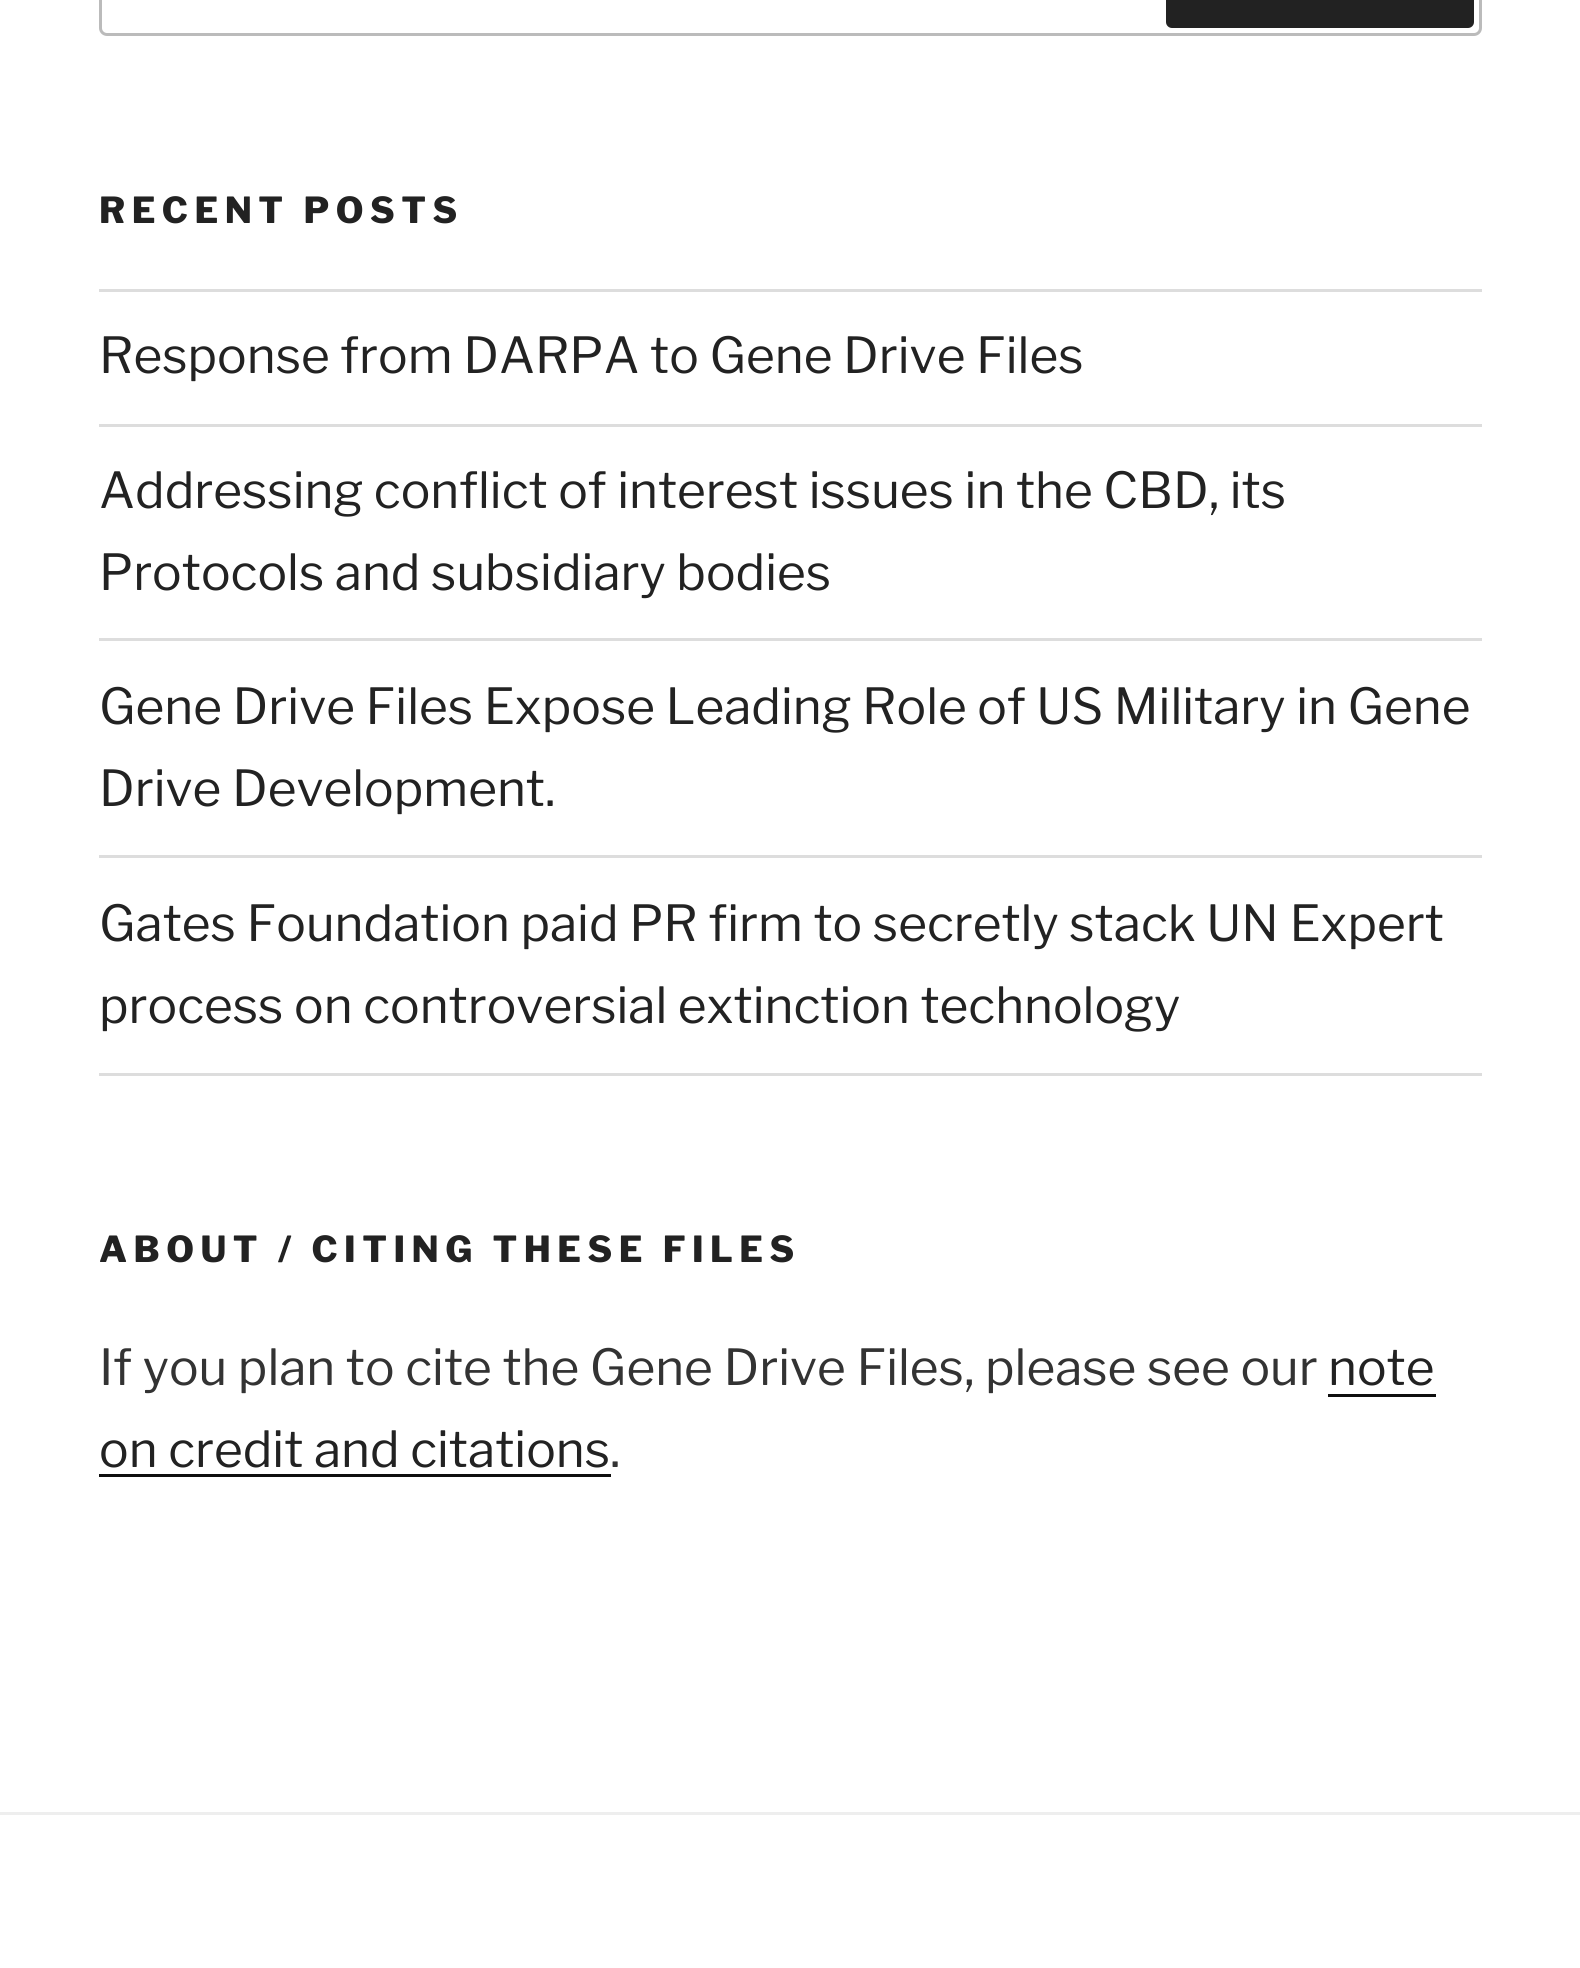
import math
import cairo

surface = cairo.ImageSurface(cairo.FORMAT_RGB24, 1580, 1968)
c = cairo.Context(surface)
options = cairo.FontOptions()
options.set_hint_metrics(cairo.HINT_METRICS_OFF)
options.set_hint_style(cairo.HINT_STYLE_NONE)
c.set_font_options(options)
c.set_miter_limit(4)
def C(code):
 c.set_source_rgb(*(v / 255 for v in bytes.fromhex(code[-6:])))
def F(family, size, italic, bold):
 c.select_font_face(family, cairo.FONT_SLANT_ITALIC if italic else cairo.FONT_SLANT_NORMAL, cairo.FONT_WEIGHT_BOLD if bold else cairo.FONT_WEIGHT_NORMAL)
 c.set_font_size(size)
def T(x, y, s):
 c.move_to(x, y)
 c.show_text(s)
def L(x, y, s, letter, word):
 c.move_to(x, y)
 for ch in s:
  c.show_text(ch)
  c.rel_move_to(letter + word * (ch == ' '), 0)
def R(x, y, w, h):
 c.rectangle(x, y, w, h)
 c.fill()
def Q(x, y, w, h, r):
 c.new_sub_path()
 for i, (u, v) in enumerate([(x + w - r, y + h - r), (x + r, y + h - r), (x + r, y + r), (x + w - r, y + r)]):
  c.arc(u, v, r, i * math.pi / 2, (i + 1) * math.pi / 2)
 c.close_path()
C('ffffff')
c.paint()
Q(100.5,-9.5,1380,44,6.5)
C('bbbbbb')
c.set_line_width(3)
c.stroke()
C('222222')
Q(1166,-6,308,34,6)
c.fill()
F('Libre Franklin ExtraBold',35.75,0,0)
L(99,223,'RECENT POSTS',6.5,0)
C('dddddd')
R(99,289,1383,3)
R(99,424,1383,3)
F('Libre Franklin',49.5,0,0)
C('222222')
T(99,373,'Response from DARPA to Gene Drive Files')
C('dddddd')
R(99,638,1383,3)
C('222222')
T(99,508,'Addressing conflict of interest issues in the CBD, its')
T(99,590,'Protocols and subsidiary bodies')
C('dddddd')
R(99,855,1383,3)
C('222222')
T(99,724,'Gene Drive Files Expose Leading Role of US Military in Gene')
T(99,806,'Drive Development.')
C('dddddd')
R(99,1073,1383,3)
C('222222')
T(99,941,'Gates Foundation paid PR firm to secretly stack UN Expert')
T(99,1023,'process on controversial extinction technology')
F('Libre Franklin ExtraBold',35.75,0,0)
L(99,1262,'ABOUT / CITING THESE FILES',6.5,0)
F('Libre Franklin',49.5,0,0)
C('333333')
T(99,1385,'If you plan to cite the Gene Drive Files, please see our')
C('222222')
T(1328,1385,'note')
C('0f0f0f')
R(1328,1394,108,3)
C('222222')
T(99,1467,'on credit and citations')
C('0f0f0f')
R(99,1474,512,3)
C('333333')
T(610,1467,'.')
C('eeeeee')
R(0,1812,1580,3)
surface.write_to_png('o.png')
